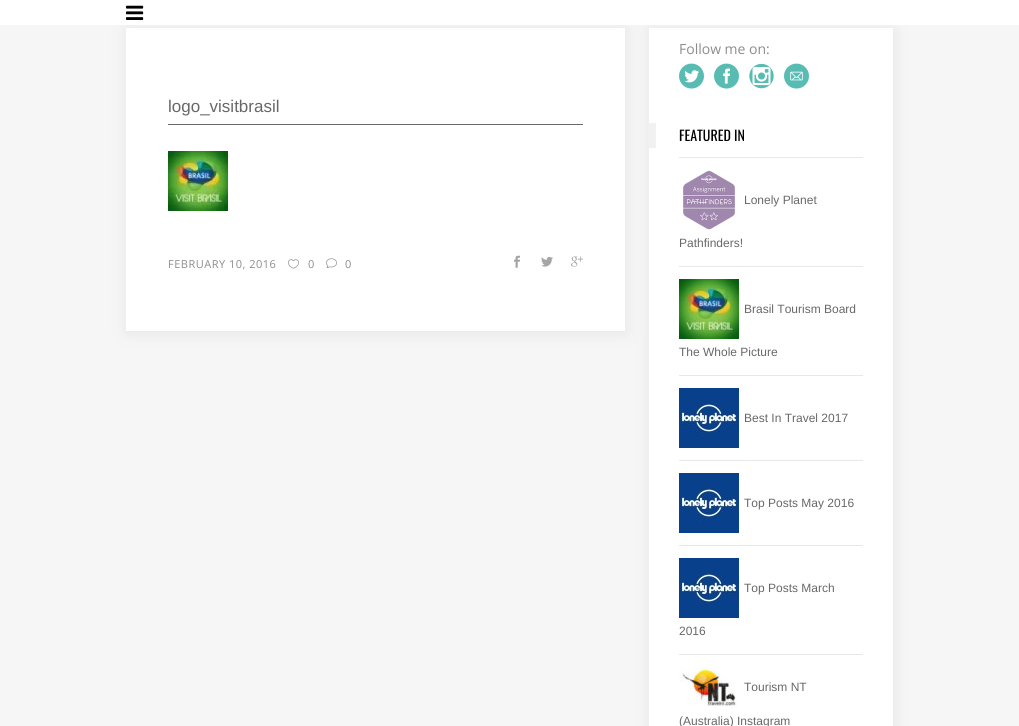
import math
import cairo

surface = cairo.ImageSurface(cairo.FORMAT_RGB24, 1019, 726)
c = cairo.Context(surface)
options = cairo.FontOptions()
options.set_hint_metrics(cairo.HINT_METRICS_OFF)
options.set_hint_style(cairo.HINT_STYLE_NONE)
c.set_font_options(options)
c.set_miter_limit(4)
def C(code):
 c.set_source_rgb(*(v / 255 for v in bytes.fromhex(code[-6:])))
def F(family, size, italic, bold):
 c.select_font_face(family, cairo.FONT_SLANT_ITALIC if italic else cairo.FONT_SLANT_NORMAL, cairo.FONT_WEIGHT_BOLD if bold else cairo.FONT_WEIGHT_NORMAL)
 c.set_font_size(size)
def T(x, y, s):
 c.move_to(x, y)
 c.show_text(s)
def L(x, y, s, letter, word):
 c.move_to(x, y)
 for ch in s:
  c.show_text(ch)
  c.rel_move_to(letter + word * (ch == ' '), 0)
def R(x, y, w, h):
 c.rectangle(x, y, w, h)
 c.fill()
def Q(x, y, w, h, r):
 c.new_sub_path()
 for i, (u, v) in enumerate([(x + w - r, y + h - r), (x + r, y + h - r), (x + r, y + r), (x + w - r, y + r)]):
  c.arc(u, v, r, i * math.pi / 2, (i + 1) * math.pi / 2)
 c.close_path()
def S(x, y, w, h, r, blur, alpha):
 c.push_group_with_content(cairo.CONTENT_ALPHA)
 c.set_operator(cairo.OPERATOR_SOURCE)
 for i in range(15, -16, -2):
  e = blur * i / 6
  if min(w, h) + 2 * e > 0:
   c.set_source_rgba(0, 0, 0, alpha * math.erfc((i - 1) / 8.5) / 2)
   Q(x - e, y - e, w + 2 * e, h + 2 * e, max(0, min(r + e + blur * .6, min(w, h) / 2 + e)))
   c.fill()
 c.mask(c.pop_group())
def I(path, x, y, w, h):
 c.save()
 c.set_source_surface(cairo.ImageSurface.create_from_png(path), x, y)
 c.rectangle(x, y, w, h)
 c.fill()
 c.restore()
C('f6f6f6')
c.paint()
C('e5e5e5')
S(127,30,499,303,0,7.5,1)
S(650,30,244,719,0,7.5,1)
C('ffffff')
R(0,0,1019,25)
I('1.png',126,5,18,15)
R(126,28,499,303)
C('686868')
R(168,124,415,1)
F('Liberation Sans',17,0,0)
T(168,112,'logo_visitbrasil')
I('2.png',168,151,60,60)
F('Open Sans',11,0,0)
C('8d8c8c')
L(168,268,'FEBRUARY 10, 2016',.5,0)
I('3.png',288,259,11,10)
T(308,268,'0')
I('4.png',326,258,11,10)
T(345,268,'0')
I('5.png',514,255,6,13)
I('6.png',541,256,12,11)
I('7.png',571,256,12,11)
C('ffffff')
R(649,28,244,698)
F('Open Sans',14,0,0)
C('8d8c8c')
T(679,54,'Follow me on:')
I('8.png',679,63,25,26)
I('9.png',714,63,25,26)
I('10.png',749,63,25,26)
I('11.png',784,63,25,26)
C('f1f1f2')
R(649,123,7,25)
F('Oswald',14,0,0)
C('000000')
T(679,141,'FEATURED IN')
C('e8e8e8')
R(679,157,184,1)
I('12.png',683,170,52,60)
F('Liberation Sans',12,0,0)
C('686868')
T(744,204,'Lonely Planet')
T(679,247,'Pathfinders!')
C('e8e8e8')
R(679,266,184,1)
I('13.png',679,279,60,60)
C('686868')
T(744,313,'Brasil Tourism Board')
T(679,356,'The Whole Picture')
C('e8e8e8')
R(679,375,184,1)
I('14.png',679,388,60,60)
C('686868')
T(744,422,'Best In Travel 2017')
C('e8e8e8')
R(679,460,184,1)
I('14.png',679,473,60,60)
C('686868')
T(744,507,'Top Posts May 2016')
C('e8e8e8')
R(679,545,184,1)
I('14.png',679,558,60,60)
C('686868')
T(744,592,'Top Posts March')
T(679,635,'2016')
C('e8e8e8')
R(679,654,184,1)
I('15.png',679,667,58,40)
C('686868')
T(744,691,'Tourism NT')
T(679,725,'(Australia) Instagram')
surface.write_to_png('o.png')
